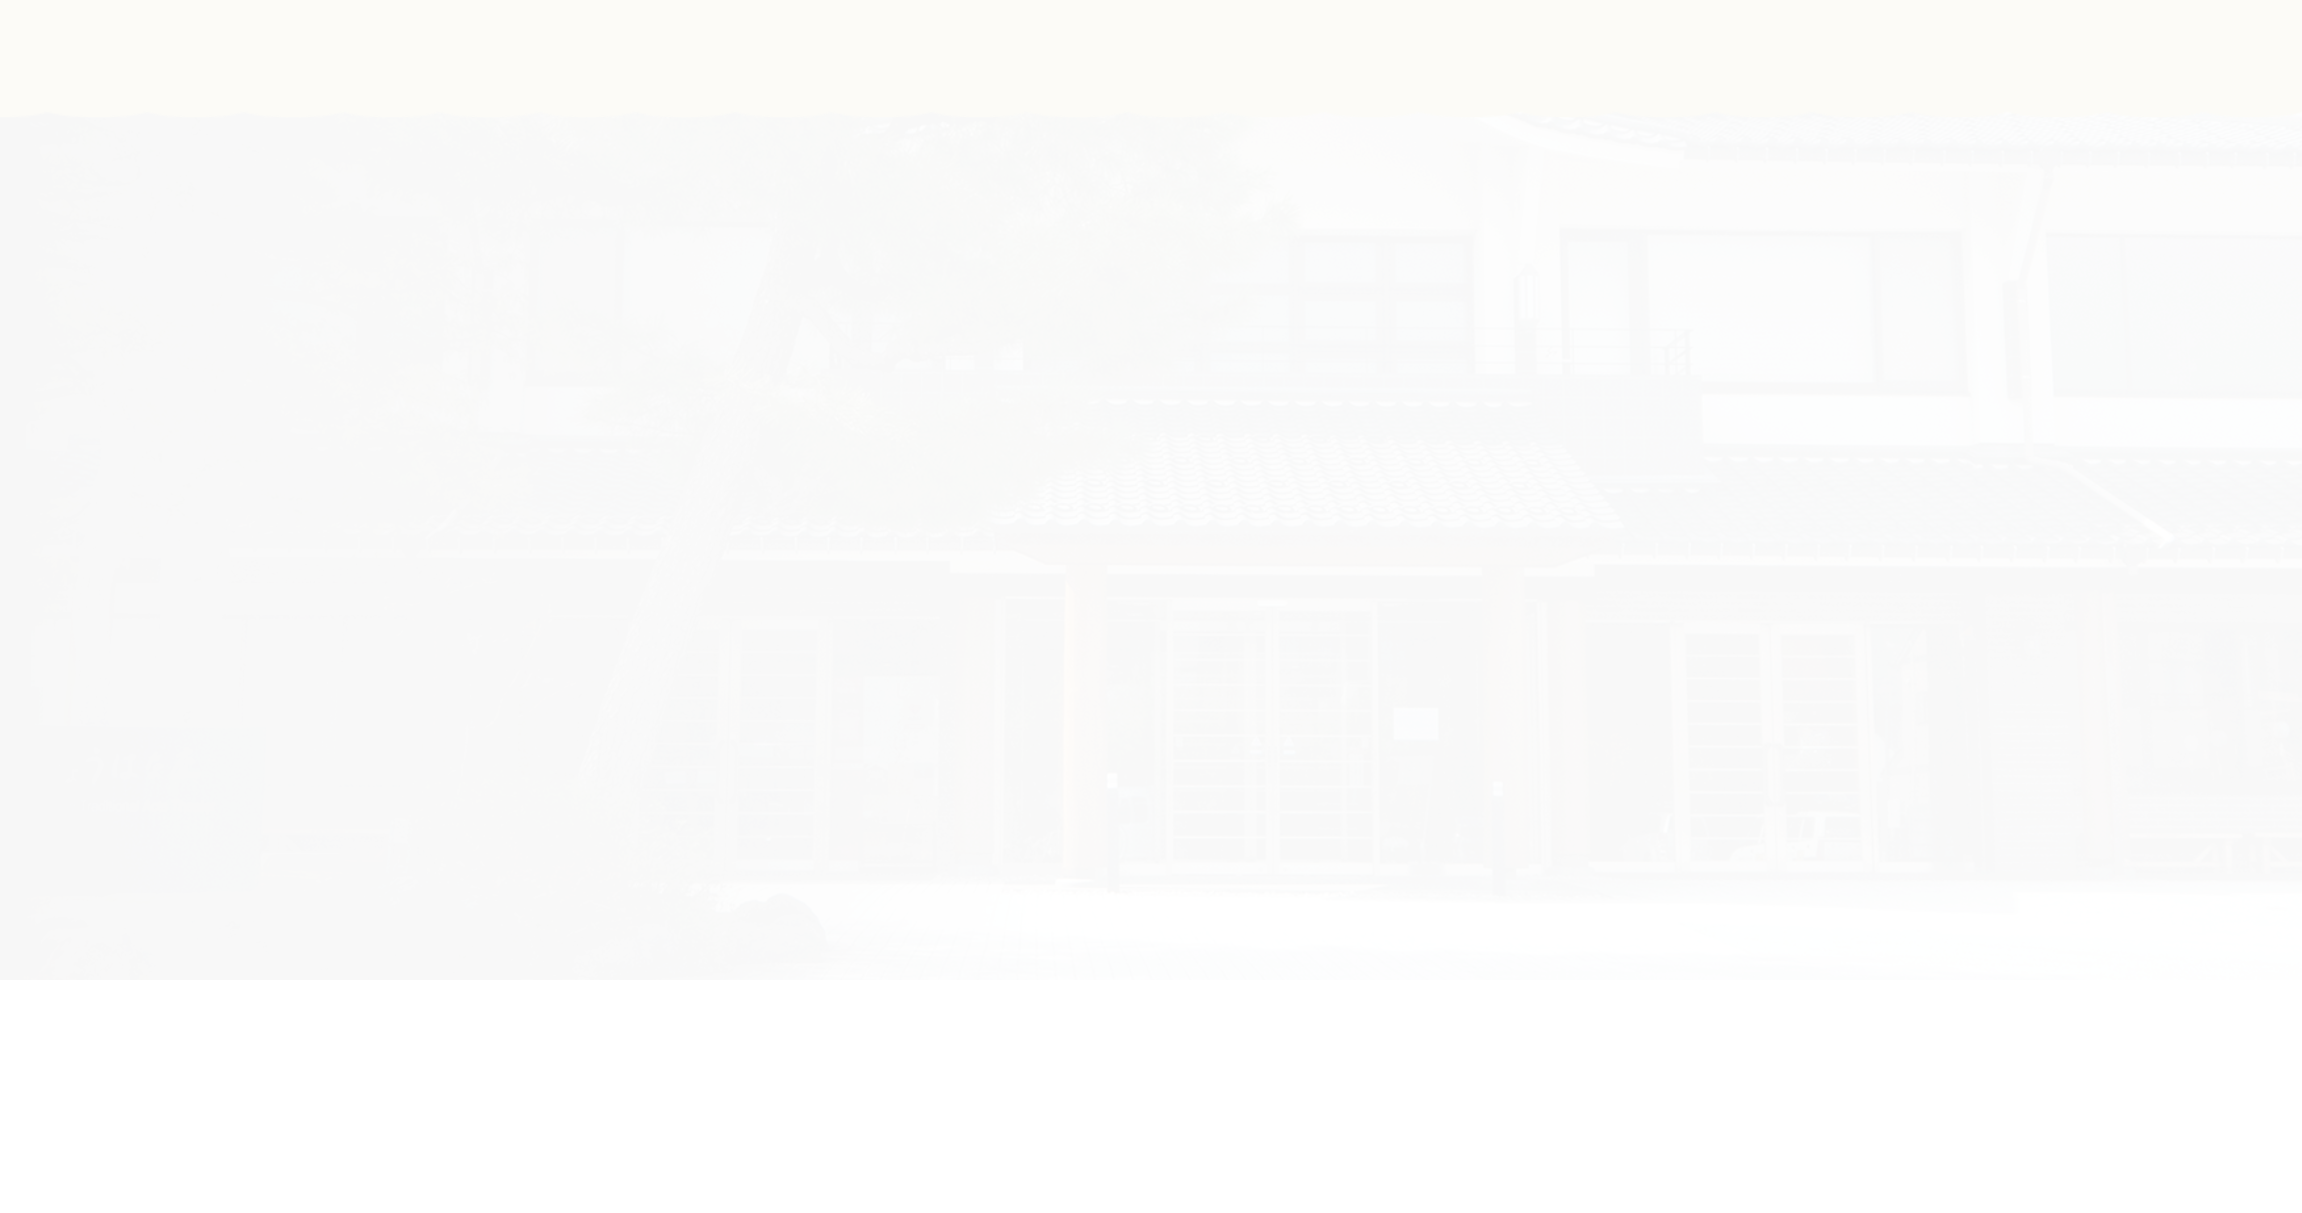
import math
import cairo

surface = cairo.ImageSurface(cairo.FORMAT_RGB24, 2302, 1213)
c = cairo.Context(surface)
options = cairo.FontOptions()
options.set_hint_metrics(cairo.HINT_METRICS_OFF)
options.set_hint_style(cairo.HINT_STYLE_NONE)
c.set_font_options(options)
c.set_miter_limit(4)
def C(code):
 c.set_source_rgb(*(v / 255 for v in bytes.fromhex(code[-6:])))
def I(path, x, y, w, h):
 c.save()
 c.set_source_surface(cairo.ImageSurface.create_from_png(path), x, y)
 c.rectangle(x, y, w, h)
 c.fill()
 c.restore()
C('ffffff')
c.paint()
I('2.png',0,111,2302,869)
I('1.png',0,0,2302,118)
surface.write_to_png('o.png')
